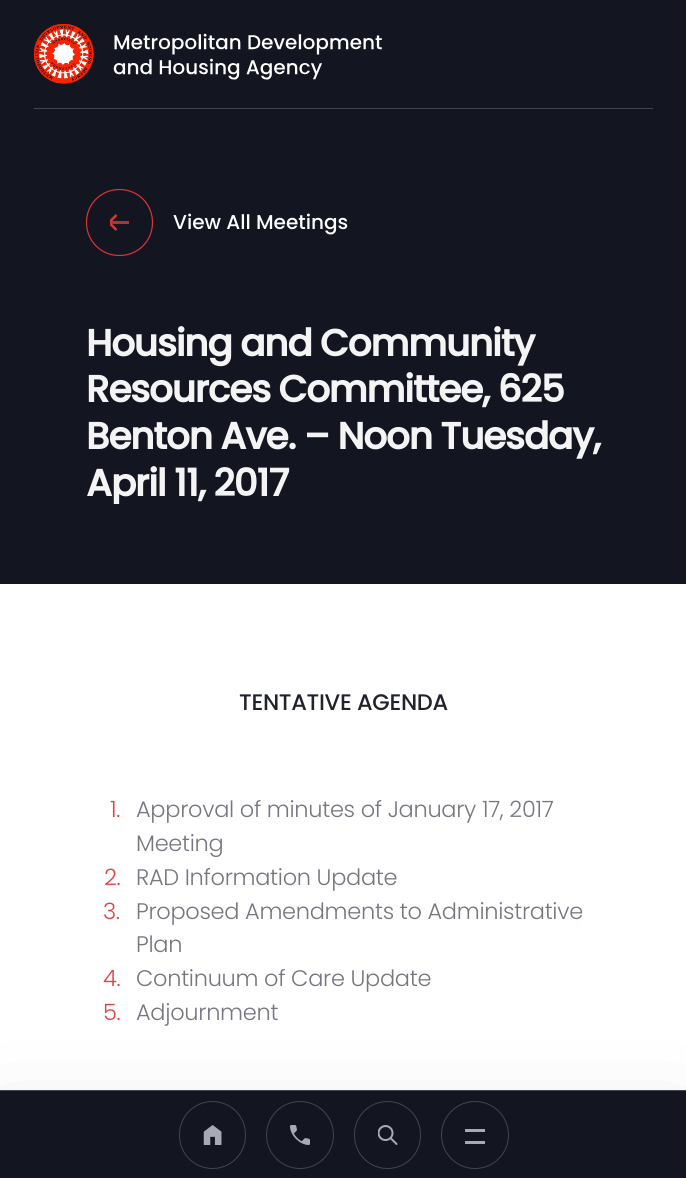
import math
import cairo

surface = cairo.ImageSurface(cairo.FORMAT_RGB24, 686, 1178)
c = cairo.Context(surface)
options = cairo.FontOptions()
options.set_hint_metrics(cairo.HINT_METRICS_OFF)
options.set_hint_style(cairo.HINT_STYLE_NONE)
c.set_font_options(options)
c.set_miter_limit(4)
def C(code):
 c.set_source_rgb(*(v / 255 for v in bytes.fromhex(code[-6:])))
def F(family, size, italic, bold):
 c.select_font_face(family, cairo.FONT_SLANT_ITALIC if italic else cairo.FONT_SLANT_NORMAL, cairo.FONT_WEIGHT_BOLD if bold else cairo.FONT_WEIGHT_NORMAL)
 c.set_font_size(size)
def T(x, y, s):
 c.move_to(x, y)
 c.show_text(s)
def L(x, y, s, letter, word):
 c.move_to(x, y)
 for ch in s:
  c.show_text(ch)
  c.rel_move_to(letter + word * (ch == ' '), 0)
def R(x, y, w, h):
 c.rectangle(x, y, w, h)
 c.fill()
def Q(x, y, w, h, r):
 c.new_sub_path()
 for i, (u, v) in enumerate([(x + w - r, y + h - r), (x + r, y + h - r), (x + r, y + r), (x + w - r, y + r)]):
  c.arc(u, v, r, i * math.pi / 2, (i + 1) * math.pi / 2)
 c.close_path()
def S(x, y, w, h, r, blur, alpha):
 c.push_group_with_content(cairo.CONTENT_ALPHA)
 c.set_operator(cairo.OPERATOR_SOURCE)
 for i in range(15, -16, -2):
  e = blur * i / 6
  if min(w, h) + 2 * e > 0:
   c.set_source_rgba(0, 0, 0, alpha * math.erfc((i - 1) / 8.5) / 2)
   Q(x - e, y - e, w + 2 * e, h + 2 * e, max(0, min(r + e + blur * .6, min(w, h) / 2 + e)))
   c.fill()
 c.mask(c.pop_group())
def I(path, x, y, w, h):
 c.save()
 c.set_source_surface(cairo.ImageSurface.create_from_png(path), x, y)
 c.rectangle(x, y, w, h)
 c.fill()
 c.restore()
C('ffffff')
c.paint()
C('131520')
R(0,0,686,584)
C('42444d')
R(34,108,619,1)
I('1.png',34,24,348,60)
C('000000')
S(0,1150,686,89,0,60,.15)
C('131520')
R(0,1091,686,87)
C('42444d')
R(0,1090,686,1)
Q(179.5,1101.5,66,67,33)
c.set_line_width(1)
c.stroke()
I('2.png',203,1125,19,20)
c.arc(300,1135,33.5,0,2 * math.pi)
c.stroke()
I('3.png',290,1125,20,20)
Q(354.5,1101.5,66,67,33)
c.stroke()
I('4.png',378,1125,20,20)
c.arc(475,1135,33.5,0,2 * math.pi)
c.stroke()
C('a9a9b4')
R(465,1129,20,3)
R(465,1141,20,3)
c.save()
c.rectangle(110,213,20,20)
c.clip()
c.new_path()
c.move_to(116.5,215)
c.line_to(109,222.5)
c.line_to(116.5,230)
C('dd3434')
c.set_line_width(2.5)
c.stroke()
c.restore()
c.set_source_rgba(0.867,0.204,0.204,0.83)
R(110,221,19,3)
c.new_path()
c.move_to(119.5,255.5)
c.curve_to(101,255.5,86.5,241,86.5,222.5)
c.curve_to(86.5,204,101,189.5,119.5,189.5)
c.curve_to(138,189.5,152.5,204,152.5,222.5)
c.curve_to(152.5,241,138,255.5,119.5,255.5)
c.close_path()
C('dd3434')
c.set_line_width(1.2)
c.stroke()
F('Poppins Medium',20,0,0)
C('ffffff')
T(173,229,'View All Meetings')
F('Poppins',37.5,0,1)
C('f4f4f5')
L(86,356,'Housing and Community',-1.25,0)
L(86,402,'Resources Committee, 625',-1.25,0)
L(86,449,'Benton Ave. – Noon Tuesday,',-1.25,0)
c.save()
c.rectangle(86,316,514,188)
c.clip()
L(86,496,'April 11, 2017',-1.25,0)
c.restore()
F('Poppins Medium',22.5,0,0)
C('20222d')
L(239,710,'TENTATIVE AGENDA',-.3,0)
F('Poppins Light',22.5,0,0)
C('df4040')
L(110,817,'1.',-.3,0)
C('767582')
L(136,817,'Approval of minutes of January 17, 2017',-.3,0)
L(136,851,'Meeting',-.3,0)
C('df4040')
L(104,885,'2.',-.3,0)
C('767582')
L(136,885,'RAD Information Update',-.3,0)
C('df4040')
L(103,919,'3.',-.3,0)
C('767582')
L(136,919,'Proposed Amendments to Administrative',-.3,0)
L(136,952,'Plan',-.3,0)
C('df4040')
L(103,986,'4.',-.3,0)
C('767582')
L(136,986,'Continuum of Care Update',-.3,0)
C('df4040')
L(103,1020,'5.',-.3,0)
C('767582')
L(136,1020,'Adjournment',-.3,0)
surface.write_to_png('o.png')
